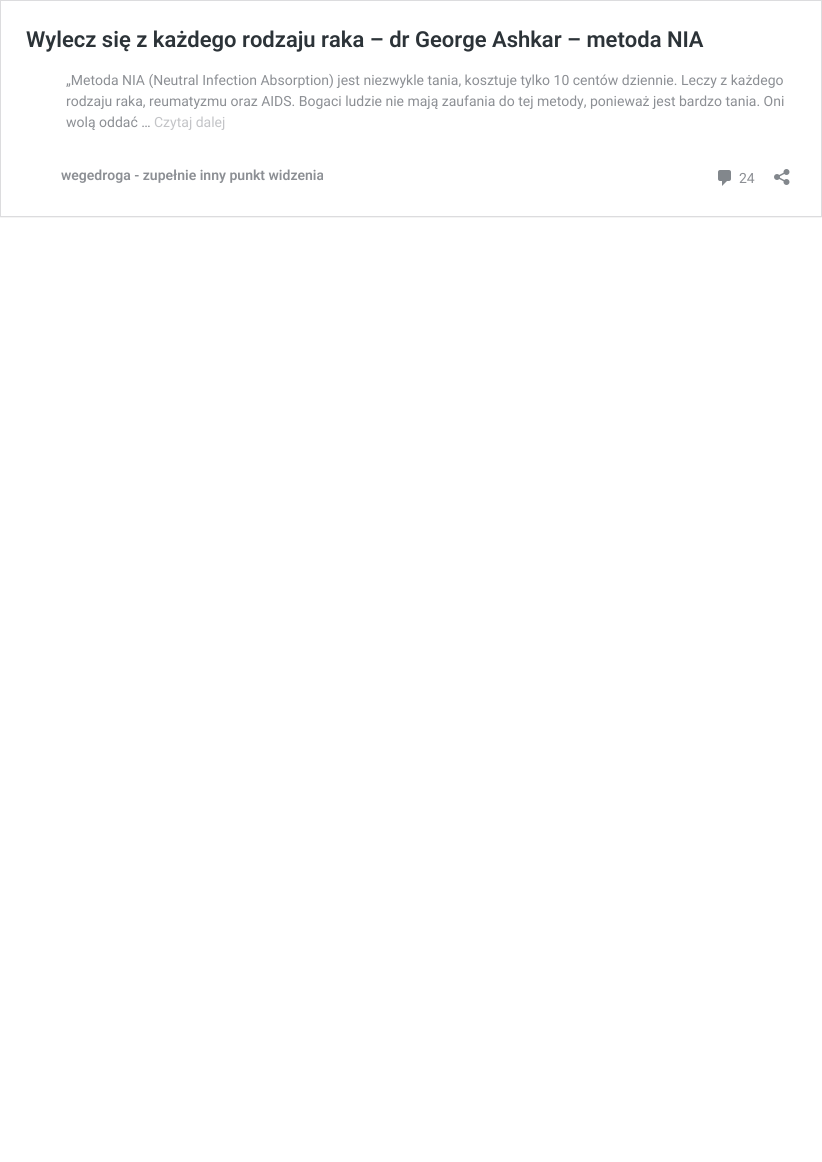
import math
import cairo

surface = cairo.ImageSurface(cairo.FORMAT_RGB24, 822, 1162)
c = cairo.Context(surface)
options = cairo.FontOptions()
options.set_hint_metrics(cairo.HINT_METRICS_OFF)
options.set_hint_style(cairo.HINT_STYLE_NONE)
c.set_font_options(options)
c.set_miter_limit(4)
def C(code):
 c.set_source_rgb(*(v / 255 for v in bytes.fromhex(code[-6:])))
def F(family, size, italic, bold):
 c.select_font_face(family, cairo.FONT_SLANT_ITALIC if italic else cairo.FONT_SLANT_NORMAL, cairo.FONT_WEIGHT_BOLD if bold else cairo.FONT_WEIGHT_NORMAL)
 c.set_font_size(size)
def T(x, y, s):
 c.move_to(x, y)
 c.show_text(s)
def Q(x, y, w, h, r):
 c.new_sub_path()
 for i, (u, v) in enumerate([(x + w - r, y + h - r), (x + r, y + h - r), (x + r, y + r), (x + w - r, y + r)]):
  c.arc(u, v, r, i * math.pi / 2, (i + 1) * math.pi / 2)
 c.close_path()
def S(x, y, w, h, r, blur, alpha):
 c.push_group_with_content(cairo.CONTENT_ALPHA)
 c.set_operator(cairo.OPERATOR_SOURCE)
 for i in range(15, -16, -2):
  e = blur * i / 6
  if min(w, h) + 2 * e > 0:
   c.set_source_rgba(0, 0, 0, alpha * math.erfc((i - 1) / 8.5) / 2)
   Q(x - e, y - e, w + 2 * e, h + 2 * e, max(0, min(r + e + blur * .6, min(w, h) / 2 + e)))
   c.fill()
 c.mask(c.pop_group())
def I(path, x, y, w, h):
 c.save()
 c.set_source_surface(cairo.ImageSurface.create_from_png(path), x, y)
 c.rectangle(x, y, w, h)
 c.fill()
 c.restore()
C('ffffff')
c.paint()
c.save()
c.rectangle(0,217,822,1)
c.clip()
C('000000')
S(0,1,822,217,0,.5,.05)
c.restore()
c.rectangle(.5,.5,821,216)
C('dcdcde')
c.set_line_width(1)
c.stroke()
F('Roboto SemiBold',22,0,0)
C('2c3338')
T(26,47,'Wylecz się z każdego rodzaju raka – dr George Ashkar – metoda NIA')
F('Roboto',14,0,0)
C('8c8f94')
T(66,85,'„Metoda NIA (Neutral Infection Absorption) jest niezwykle tania, kosztuje tylko 10 centów dziennie. Leczy z każdego')
T(66,106,'rodzaju raka, reumatyzmu oraz AIDS. Bogaci ludzie nie mają zaufania do tej metody, ponieważ jest bardzo tania. Oni')
T(66,127,'wolą oddać …')
C('c3c4c7')
T(154,127,'Czytaj dalej')
F('Roboto SemiBold',14,0,0)
C('8c8f94')
T(61,180,'wegedroga - zupełnie inny punkt widzenia')
I('1.png',718,170,13,16)
F('Roboto',14,0,0)
T(739,183,'24')
I('2.png',774,169,16,16)
surface.write_to_png('o.png')
